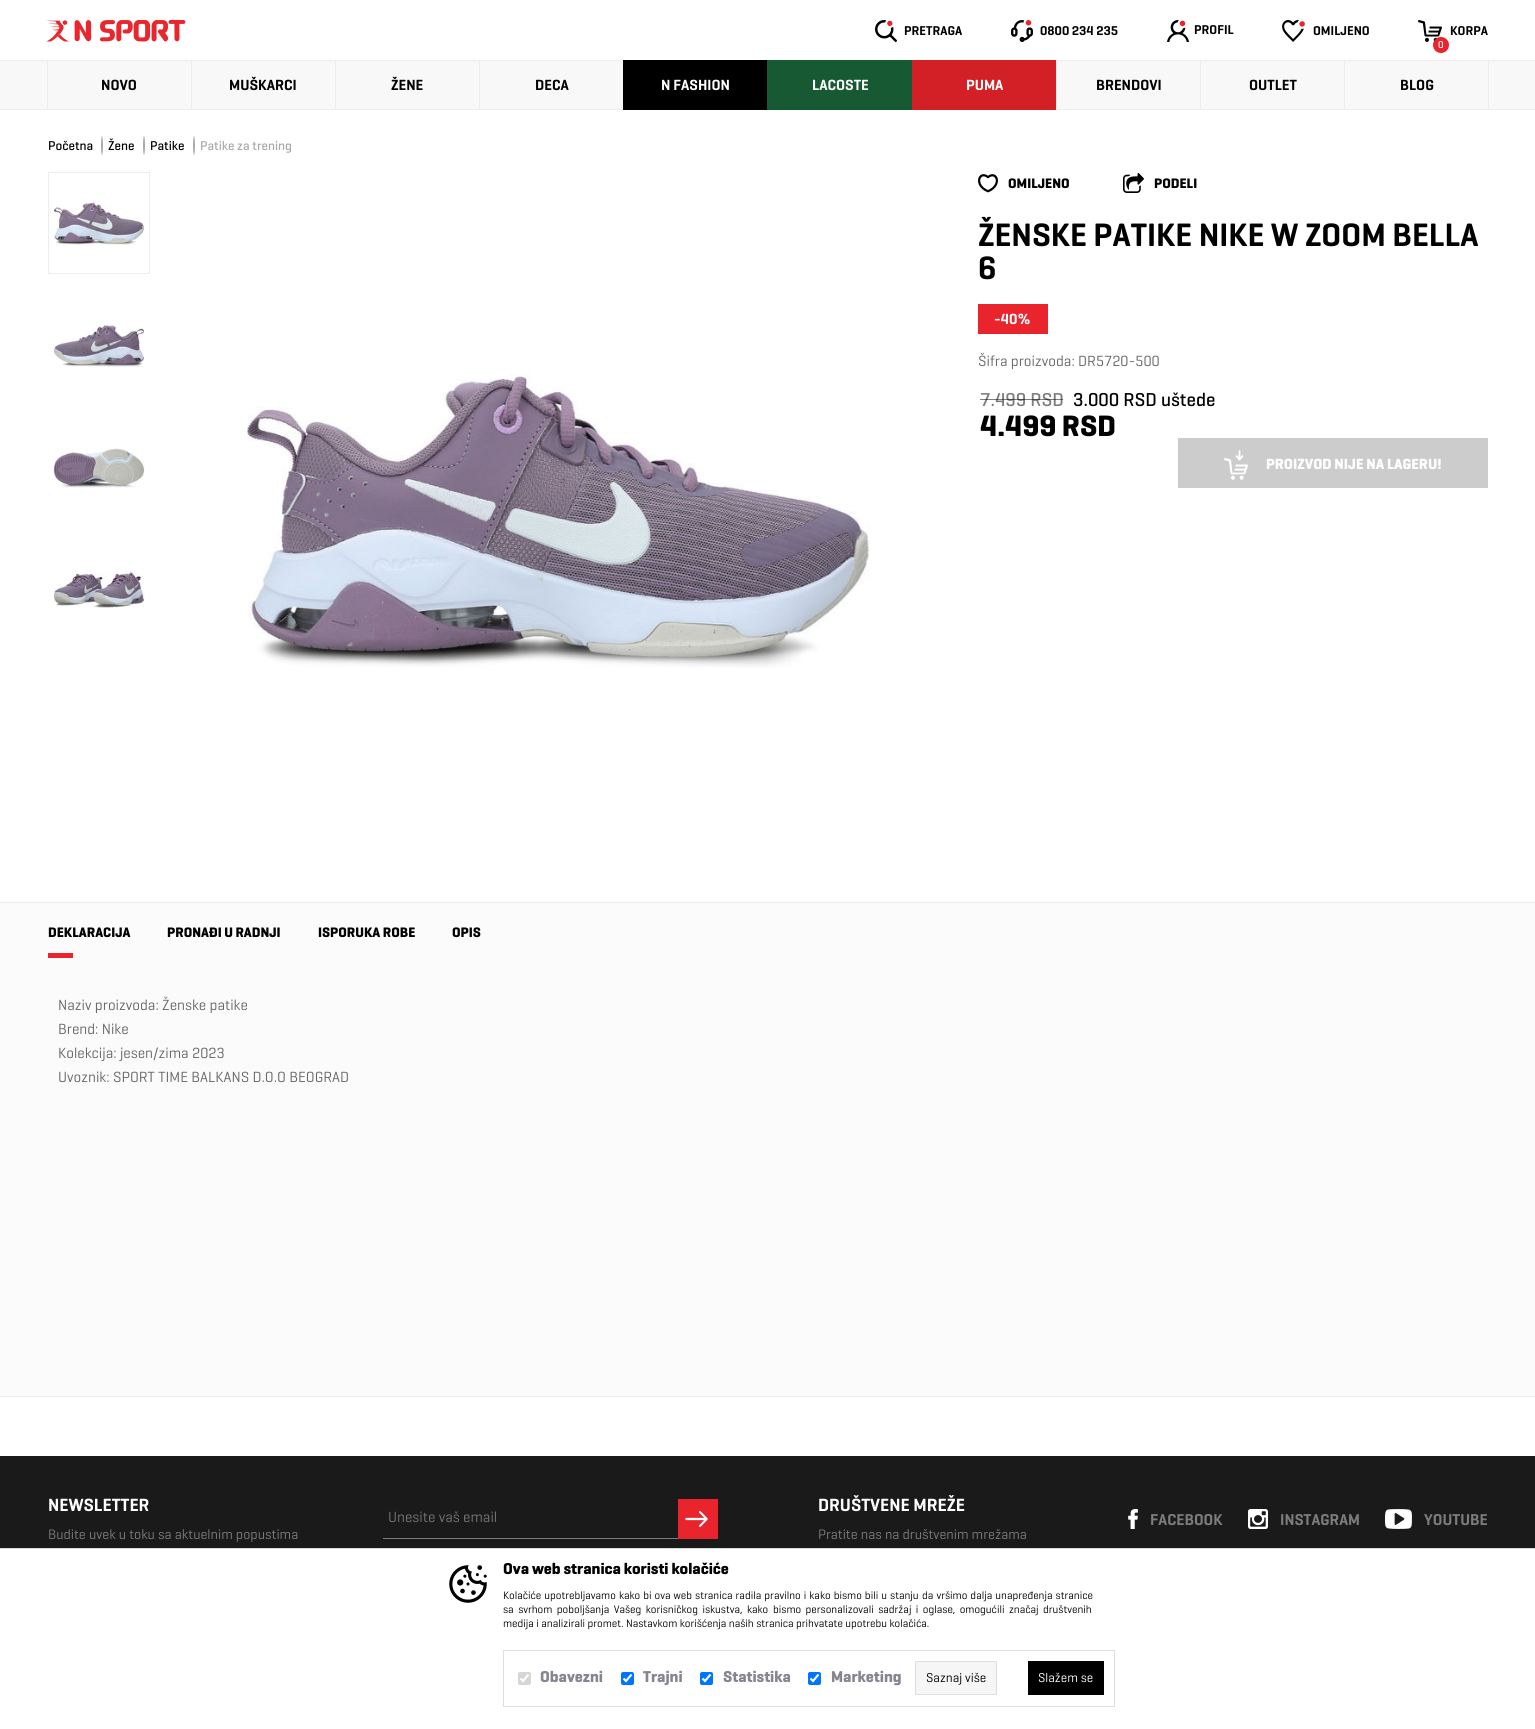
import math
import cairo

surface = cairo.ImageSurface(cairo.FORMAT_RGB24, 1535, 1729)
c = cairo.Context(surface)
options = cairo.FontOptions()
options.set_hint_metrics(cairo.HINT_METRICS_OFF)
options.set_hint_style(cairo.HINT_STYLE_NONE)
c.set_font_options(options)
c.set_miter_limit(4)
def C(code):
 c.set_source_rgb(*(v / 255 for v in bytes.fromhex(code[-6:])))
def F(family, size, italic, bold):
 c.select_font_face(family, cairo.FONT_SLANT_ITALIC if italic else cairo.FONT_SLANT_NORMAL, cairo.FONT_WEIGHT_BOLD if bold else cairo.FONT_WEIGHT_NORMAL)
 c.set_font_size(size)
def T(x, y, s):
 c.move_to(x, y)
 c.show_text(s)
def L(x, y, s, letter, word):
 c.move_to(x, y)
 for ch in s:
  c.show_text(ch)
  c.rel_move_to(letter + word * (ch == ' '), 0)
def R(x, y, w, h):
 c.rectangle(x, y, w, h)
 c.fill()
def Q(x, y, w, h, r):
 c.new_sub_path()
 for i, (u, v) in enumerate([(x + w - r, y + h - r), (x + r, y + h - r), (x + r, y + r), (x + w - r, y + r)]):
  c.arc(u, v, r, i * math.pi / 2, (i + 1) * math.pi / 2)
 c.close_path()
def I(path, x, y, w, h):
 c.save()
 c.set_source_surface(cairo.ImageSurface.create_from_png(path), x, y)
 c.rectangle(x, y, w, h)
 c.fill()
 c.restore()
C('ffffff')
c.paint()
I('1.png',46,20,140,22)
I('2.png',875,20,22,22)
F('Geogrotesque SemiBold',13,0,0)
C('000000')
T(904,35,'PRETRAGA')
I('3.png',1011,20,22,22)
T(1040,35,'0800 234 235')
I('4.png',1167,20,22,22)
T(1194,34,'PROFIL')
I('5.png',1282,20,23,22)
T(1313,35,'OMILJENO')
I('6.png',1418,20,24,22)
T(1450,35,'KORPA')
C('e9242d')
c.new_path()
c.arc(1441,45,8,0,2 * math.pi)
c.fill()
F('Geogrotesque Medium',10,0,0)
C('ffffff')
T(1438,48,'0')
C('f8f8f8')
R(0,61,1535,48)
C('ededed')
R(0,60,1535,1)
R(0,109,1535,1)
c.rectangle(47.5,60.5,144,49)
c.set_line_width(1)
c.stroke()
F('Geogrotesque SemiBold',15,0,0)
C('000000')
T(101,90,'NOVO')
c.rectangle(191.5,60.5,144,49)
C('ededed')
c.stroke()
C('000000')
T(229,90,'MUŠKARCI')
c.rectangle(335.5,60.5,144,49)
C('ededed')
c.stroke()
C('000000')
T(391,90,'ŽENE')
c.rectangle(479.5,60.5,144,49)
C('ededed')
c.stroke()
C('000000')
T(535,90,'DECA')
R(623,60,144,50)
C('ffffff')
T(661,90,'N FASHION')
C('175933')
R(767,60,145,50)
C('ffffff')
T(812,90,'LACOSTE')
C('d31f26')
R(912,60,144,50)
C('ffffff')
T(966,90,'PUMA')
c.rectangle(1056.5,60.5,144,49)
C('ededed')
c.stroke()
C('000000')
T(1096,90,'BRENDOVI')
c.rectangle(1200.5,60.5,144,49)
C('ededed')
c.stroke()
C('000000')
T(1249,90,'OUTLET')
c.rectangle(1344.5,60.5,144,49)
C('ededed')
c.stroke()
C('000000')
T(1400,90,'BLOG')
F('Geogrotesque Medium',13,0,0)
T(48,150,'Početna')
C('a9a9a9')
c.new_path()
c.move_to(102,136)
c.curve_to(102.5,136,103,140.5,103,145.5)
c.curve_to(103,150.5,102.5,155,102,155)
c.curve_to(101.5,155,101,150.5,101,145.5)
c.curve_to(101,140.5,101.5,136,102,136)
c.close_path()
c.fill()
C('000000')
T(108,150,'Žene')
C('a9a9a9')
c.new_path()
c.move_to(144,136)
c.curve_to(144.5,136,145,140.5,145,145.5)
c.curve_to(145,150.5,144.5,155,144,155)
c.curve_to(143.5,155,143,150.5,143,145.5)
c.curve_to(143,140.5,143.5,136,144,136)
c.close_path()
c.fill()
C('000000')
T(150,150,'Patike')
C('a9a9a9')
c.new_path()
c.move_to(194,136)
c.curve_to(194.5,136,195,140.5,195,145.5)
c.curve_to(195,150.5,194.5,155,194,155)
c.curve_to(193.5,155,193,150.5,193,145.5)
c.curve_to(193,140.5,193.5,136,194,136)
c.close_path()
c.fill()
T(200,150,'Patike za trening')
c.rectangle(48.5,172.5,101,101)
C('ededed')
c.stroke()
I('7.png',54,202,90,43)
I('8.png',54,325,91,42)
I('9.png',53,448,92,40)
I('10.png',53,571,92,37)
I('11.png',247,372,623,296)
I('12.png',978,174,20,19)
F('Geogrotesque',14,0,1)
C('000000')
T(1008,188,'OMILJENO')
I('13.png',1123,173,21,20)
T(1154,188,'PODELI')
F('Geogrotesque SemiBold',33,0,0)
T(978,246,'ŽENSKE PATIKE NIKE W ZOOM BELLA')
T(978,279,'6')
C('e9242d')
R(978,304,70,30)
F('Geogrotesque SemiBold',15,0,0)
C('ffffff')
T(994,324,'-40%')
F('Geogrotesque',15,0,0)
C('666666')
T(978,366,'Šifra proizvoda: DR5720-500')
F('Geogrotesque Medium',19,0,0)
C('7c7c7c')
T(980,406,'7.499 RSD')
c.set_source_rgba(0,0,0,0.5)
R(980,399,83,1)
C('000000')
T(1073,406,'3.000 RSD uštede')
F('Geogrotesque',30,0,1)
T(980,436,'4.499 RSD')
C('cccccc')
R(1178,438,310,50)
I('14.png',1224,450,24,30)
F('Geogrotesque',15,0,1)
C('ffffff')
T(1266,469,'PROIZVOD NIJE NA LAGERU!')
C('fbfbfb')
R(0,903,1535,493)
C('ededed')
R(0,902,1535,1)
R(0,1396,1535,1)
F('Geogrotesque',14,0,1)
C('000000')
T(48,937,'DEKLARACIJA')
C('e9242d')
R(48,953,25,5)
C('000000')
T(167,937,'PRONAĐI U RADNJI')
T(318,937,'ISPORUKA ROBE')
T(452,937,'OPIS')
F('Geogrotesque',15,0,0)
C('666666')
T(58,1010,'Naziv proizvoda: Ženske patike')
T(58,1034,'Brend: Nike')
T(58,1058,'Kolekcija: jesen/zima 2023')
T(58,1082,'Uvoznik: SPORT TIME BALKANS D.O.O BEOGRAD')
C('1a1a1a')
R(0,1456,1535,92)
F('Geogrotesque SemiBold',18,0,0)
C('ffffff')
T(48,1511,'NEWSLETTER')
F('Geogrotesque',14,0,0)
C('7c7c7c')
T(48,1539,'Budite uvek u toku sa aktuelnim popustima')
R(383,1538,295,1)
F('Geogrotesque',15,0,0)
C('757575')
T(388,1522,'Unesite vaš email')
C('e9242d')
R(678,1499,40,40)
I('15.png',685,1511,23,16)
F('Geogrotesque SemiBold',18,0,0)
C('ffffff')
T(818,1511,'DRUŠTVENE MREŽE')
F('Geogrotesque',14,0,0)
C('7c7c7c')
T(818,1539,'Pratite nas na društvenim mrežama')
I('16.png',1128,1509,10,20)
F('Geogrotesque SemiBold',16,0,0)
T(1150,1525,'FACEBOOK')
I('17.png',1248,1509,20,20)
T(1280,1525,'INSTAGRAM')
I('18.png',1385,1509,27,20)
T(1424,1525,'YOUTUBE')
c.rectangle(-.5,1548.5,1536,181)
C('d9d9d9')
c.stroke()
I('19.png',449,1565,38,38)
F('Geogrotesque',16,0,1)
C('000000')
T(503,1574,'Ova web stranica koristi kolačiće')
F('Geogrotesque',11,0,0)
L(503,1599,'Kolačiće upotrebljavamo kako bi ova web stranica radila pravilno i kako bismo bili u stanju',0,.6)
L(922,1599,'da vršimo dalja unapređenja stranice',0,.6)
L(503,1613,'sa svrhom poboljšanja Vašeg korisničkog iskustva, kako',0,2)
L(773,1613,'bismo personalizovali sadržaj i oglase, omogućili značaj društvenih',0,2)
T(503,1627,'medija i analizirali promet. Nastavkom korišćenja naših stranica prihvatate upotrebu kolačića.')
c.rectangle(503.5,1650.5,611,56)
C('dedede')
c.stroke()
C('d6d6d6')
Q(518,1672,13,13,2)
c.fill()
c.new_path()
c.move_to(520.5,1678.5)
c.line_to(523,1681)
c.line_to(528.5,1674.5)
C('ffffff')
c.set_line_width(2.1)
c.stroke()
F('Geogrotesque',16,0,1)
C('868692')
T(540,1682,'Obavezni')
C('0075ff')
Q(621,1672,13,13,2)
c.fill()
c.new_path()
c.move_to(623.5,1678.5)
c.line_to(626,1681)
c.line_to(631.5,1674.5)
C('ffffff')
c.stroke()
C('868692')
T(643,1682,'Trajni')
C('0075ff')
Q(700,1672,13,13,2)
c.fill()
c.new_path()
c.move_to(702.5,1678.5)
c.line_to(705,1681)
c.line_to(710.5,1674.5)
C('ffffff')
c.stroke()
C('868692')
T(723,1682,'Statistika')
C('0075ff')
Q(808,1672,13,13,2)
c.fill()
c.new_path()
c.move_to(810.5,1678.5)
c.line_to(813,1681)
c.line_to(818.5,1674.5)
C('ffffff')
c.stroke()
C('868692')
T(831,1682,'Marketing')
C('f6f6f6')
c.rectangle(915.5,1661.5,81,33)
c.fill_preserve()
C('dedede')
c.set_line_width(1)
c.stroke()
F('Geogrotesque',13,0,0)
C('000000')
T(926,1682,'Saznaj više')
R(1028,1661,76,34)
C('ffffff')
T(1038,1682,'Slažem se')
surface.write_to_png('o.png')
